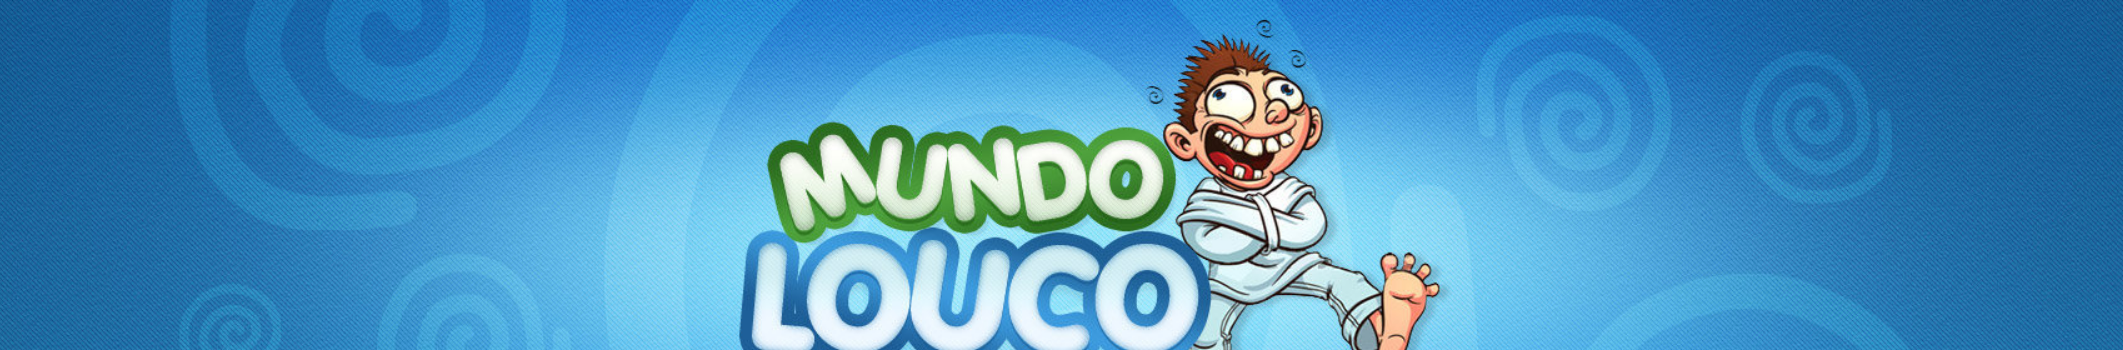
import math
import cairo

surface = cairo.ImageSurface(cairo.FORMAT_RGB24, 2123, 350)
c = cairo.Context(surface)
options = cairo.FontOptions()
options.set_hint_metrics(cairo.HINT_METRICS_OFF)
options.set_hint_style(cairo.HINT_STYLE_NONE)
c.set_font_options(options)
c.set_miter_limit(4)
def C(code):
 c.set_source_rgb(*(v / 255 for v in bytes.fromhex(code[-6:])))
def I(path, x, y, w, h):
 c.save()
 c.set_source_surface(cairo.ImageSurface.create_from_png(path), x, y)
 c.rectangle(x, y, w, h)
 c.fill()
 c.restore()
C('ffffff')
c.paint()
I('1.png',0,0,2123,350)
surface.write_to_png('o.png')
